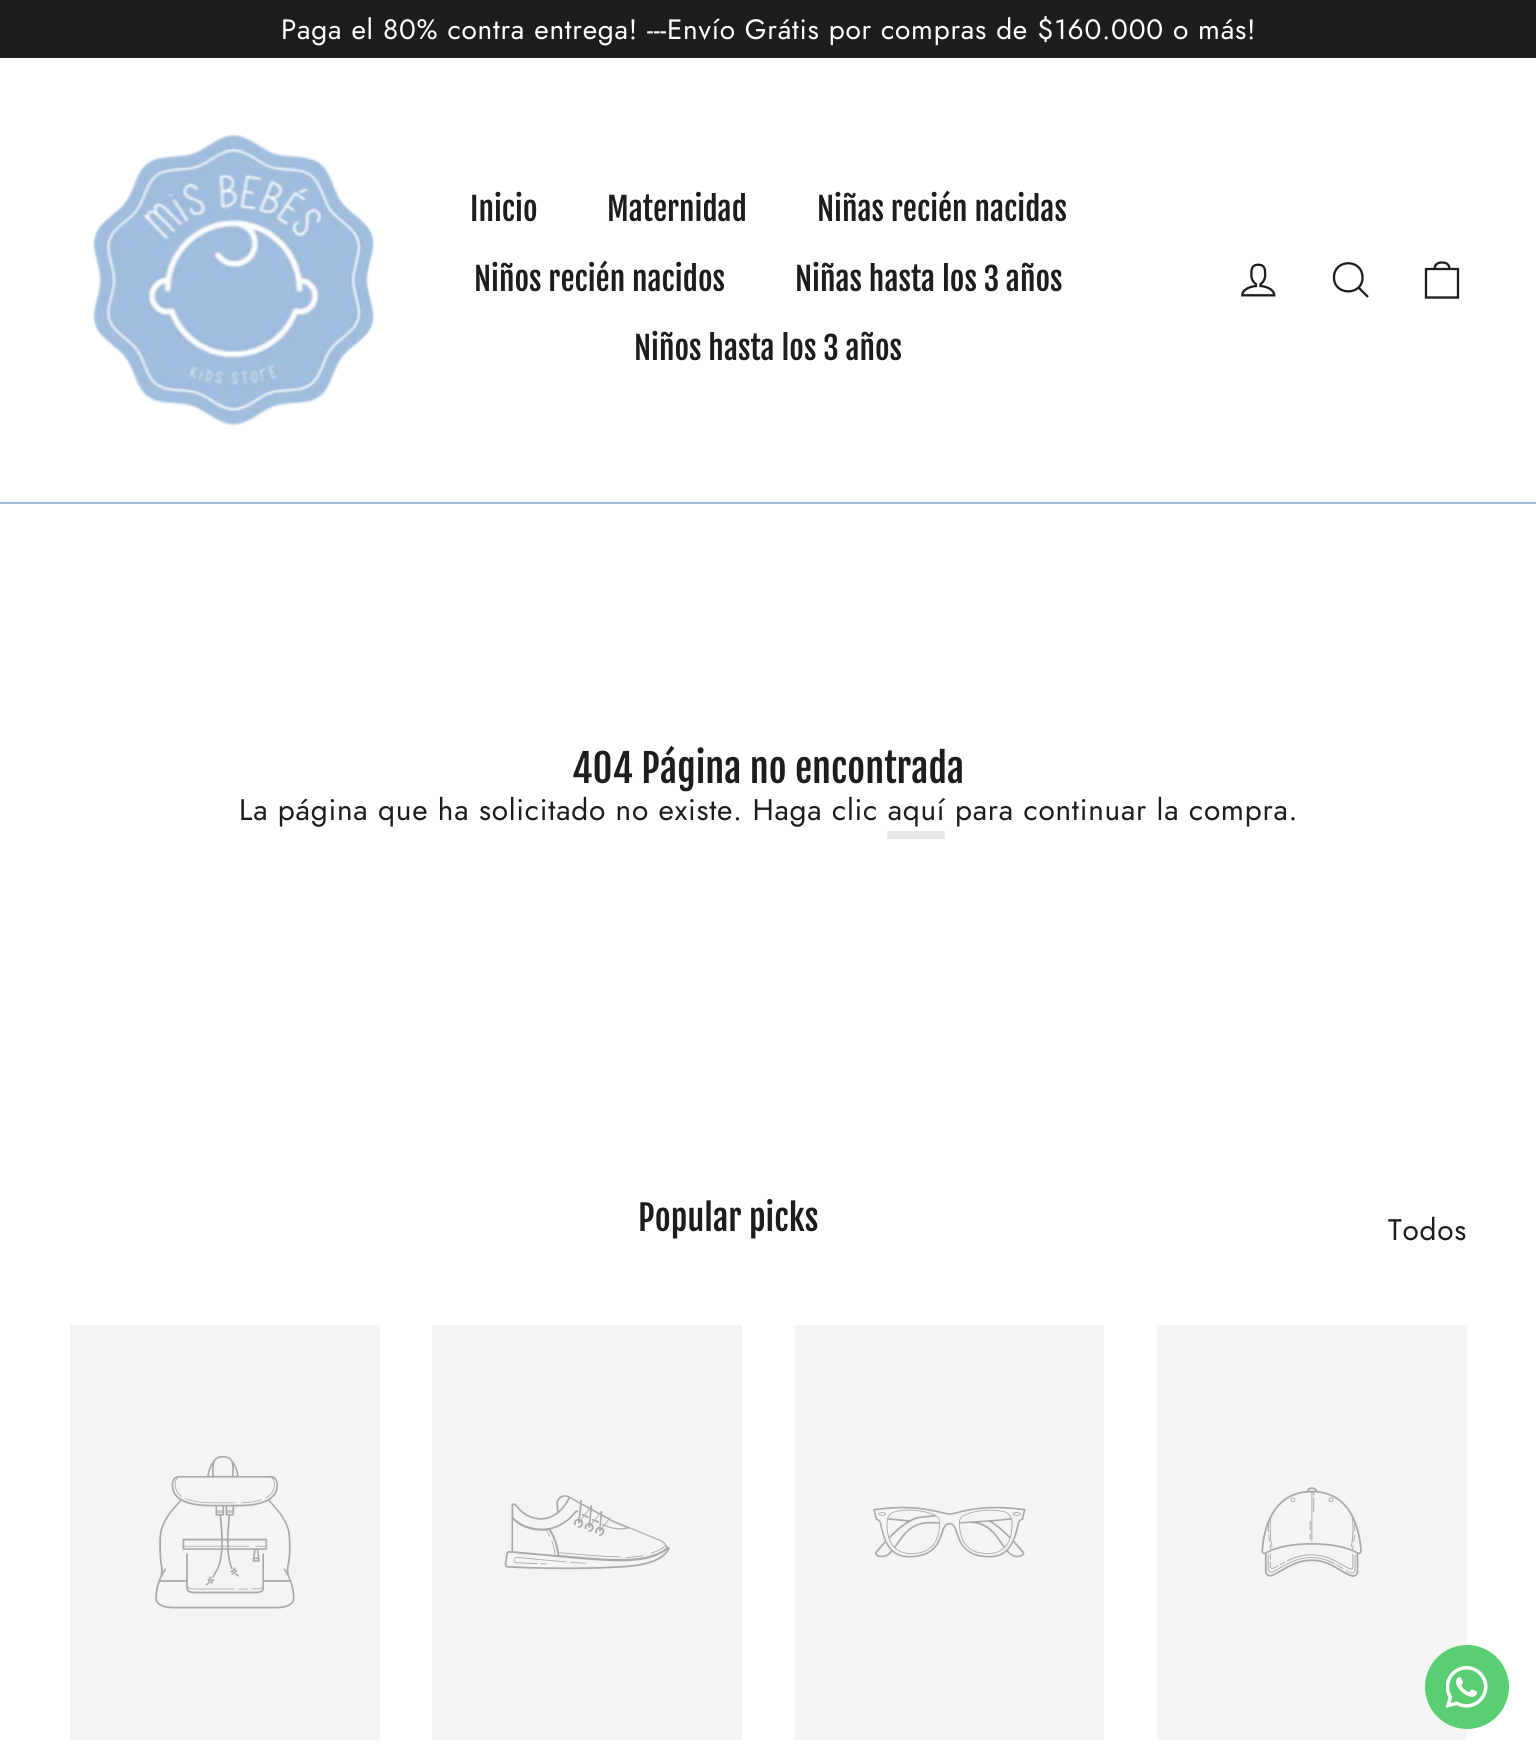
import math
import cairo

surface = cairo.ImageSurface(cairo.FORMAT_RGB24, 1536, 1756)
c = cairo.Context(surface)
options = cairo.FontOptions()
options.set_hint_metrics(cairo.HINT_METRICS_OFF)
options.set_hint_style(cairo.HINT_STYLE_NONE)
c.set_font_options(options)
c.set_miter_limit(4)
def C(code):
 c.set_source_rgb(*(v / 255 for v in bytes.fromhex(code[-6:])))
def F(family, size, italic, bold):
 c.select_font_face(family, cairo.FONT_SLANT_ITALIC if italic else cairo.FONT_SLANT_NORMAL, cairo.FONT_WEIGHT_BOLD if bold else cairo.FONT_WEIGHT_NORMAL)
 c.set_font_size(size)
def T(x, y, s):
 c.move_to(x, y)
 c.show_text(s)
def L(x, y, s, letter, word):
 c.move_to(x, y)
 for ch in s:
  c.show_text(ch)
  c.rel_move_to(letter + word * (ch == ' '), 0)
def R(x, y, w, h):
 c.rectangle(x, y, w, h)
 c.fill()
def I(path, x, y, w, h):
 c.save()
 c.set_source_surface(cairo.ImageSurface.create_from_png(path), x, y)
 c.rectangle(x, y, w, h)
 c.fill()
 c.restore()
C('ffffff')
c.paint()
C('1c1d1d')
R(0,0,1536,58)
F('Jost',28,0,0)
C('ffffff')
L(281,39,'Paga el 80% contra entrega! ---Envío Grátis por compras de $160.000 o más!',.75,0)
C('a1bedf')
R(0,502,1536,2)
I('1.png',92,134,283,293)
F('Fjalla One',31.5,0,0)
C('1c1d1d')
T(470,221,'Inicio')
T(607,221,'Maternidad')
T(817,221,'Niñas recién nacidas')
T(474,291,'Niños recién nacidos')
T(795,291,'Niñas hasta los 3 años')
T(634,360,'Niños hasta los 3 años')
I('2.png',1241,263,35,34)
c.new_path()
c.move_to(1362.5,277.5)
c.curve_to(1362.5,296,1334,296,1334,277.5)
c.curve_to(1334,258.5,1362.5,258.5,1362.5,277.5)
c.close_path()
c.move_to(1368,297)
c.line_to(1358.5,287.5)
c.set_line_width(2.3)
c.stroke()
c.new_path()
c.move_to(1426,269)
c.line_to(1458,269)
c.line_to(1458,297.5)
c.line_to(1426,297.5)
c.close_path()
c.move_to(1434.5,269.5)
c.curve_to(1434.5,264,1438,262.5,1442,262.5)
c.curve_to(1446,262.5,1449.5,264,1449.5,269.5)
c.stroke()
F('Fjalla One',38.5,0,0)
T(572,783,'404 Página no encontrada')
F('Jost',29.75,0,0)
L(239,820,'La página que ha solicitado no existe. Haga clic aquí',.75,0)
L(955,820,'para continuar la compra.',.75,0)
C('e8e8e8')
R(887,831,58,8)
F('Fjalla One',34.5,0,0)
C('1c1d1d')
T(638,1231,'Popular picks')
F('Jost',29.75,0,0)
L(1388,1240,'Todos',.75,0)
C('f4f4f4')
R(70,1325,310,415)
I('3.png',155,1456,140,153)
R(432,1325,310,415)
I('4.png',504,1495,166,75)
R(795,1325,309,415)
I('5.png',873,1506,153,52)
R(1157,1325,310,415)
I('6.png',1261,1487,101,90)
C('59ce72')
c.arc(1467,1687,42,0,2 * math.pi)
c.fill()
I('7.png',1446,1666,42,42)
surface.write_to_png('o.png')
